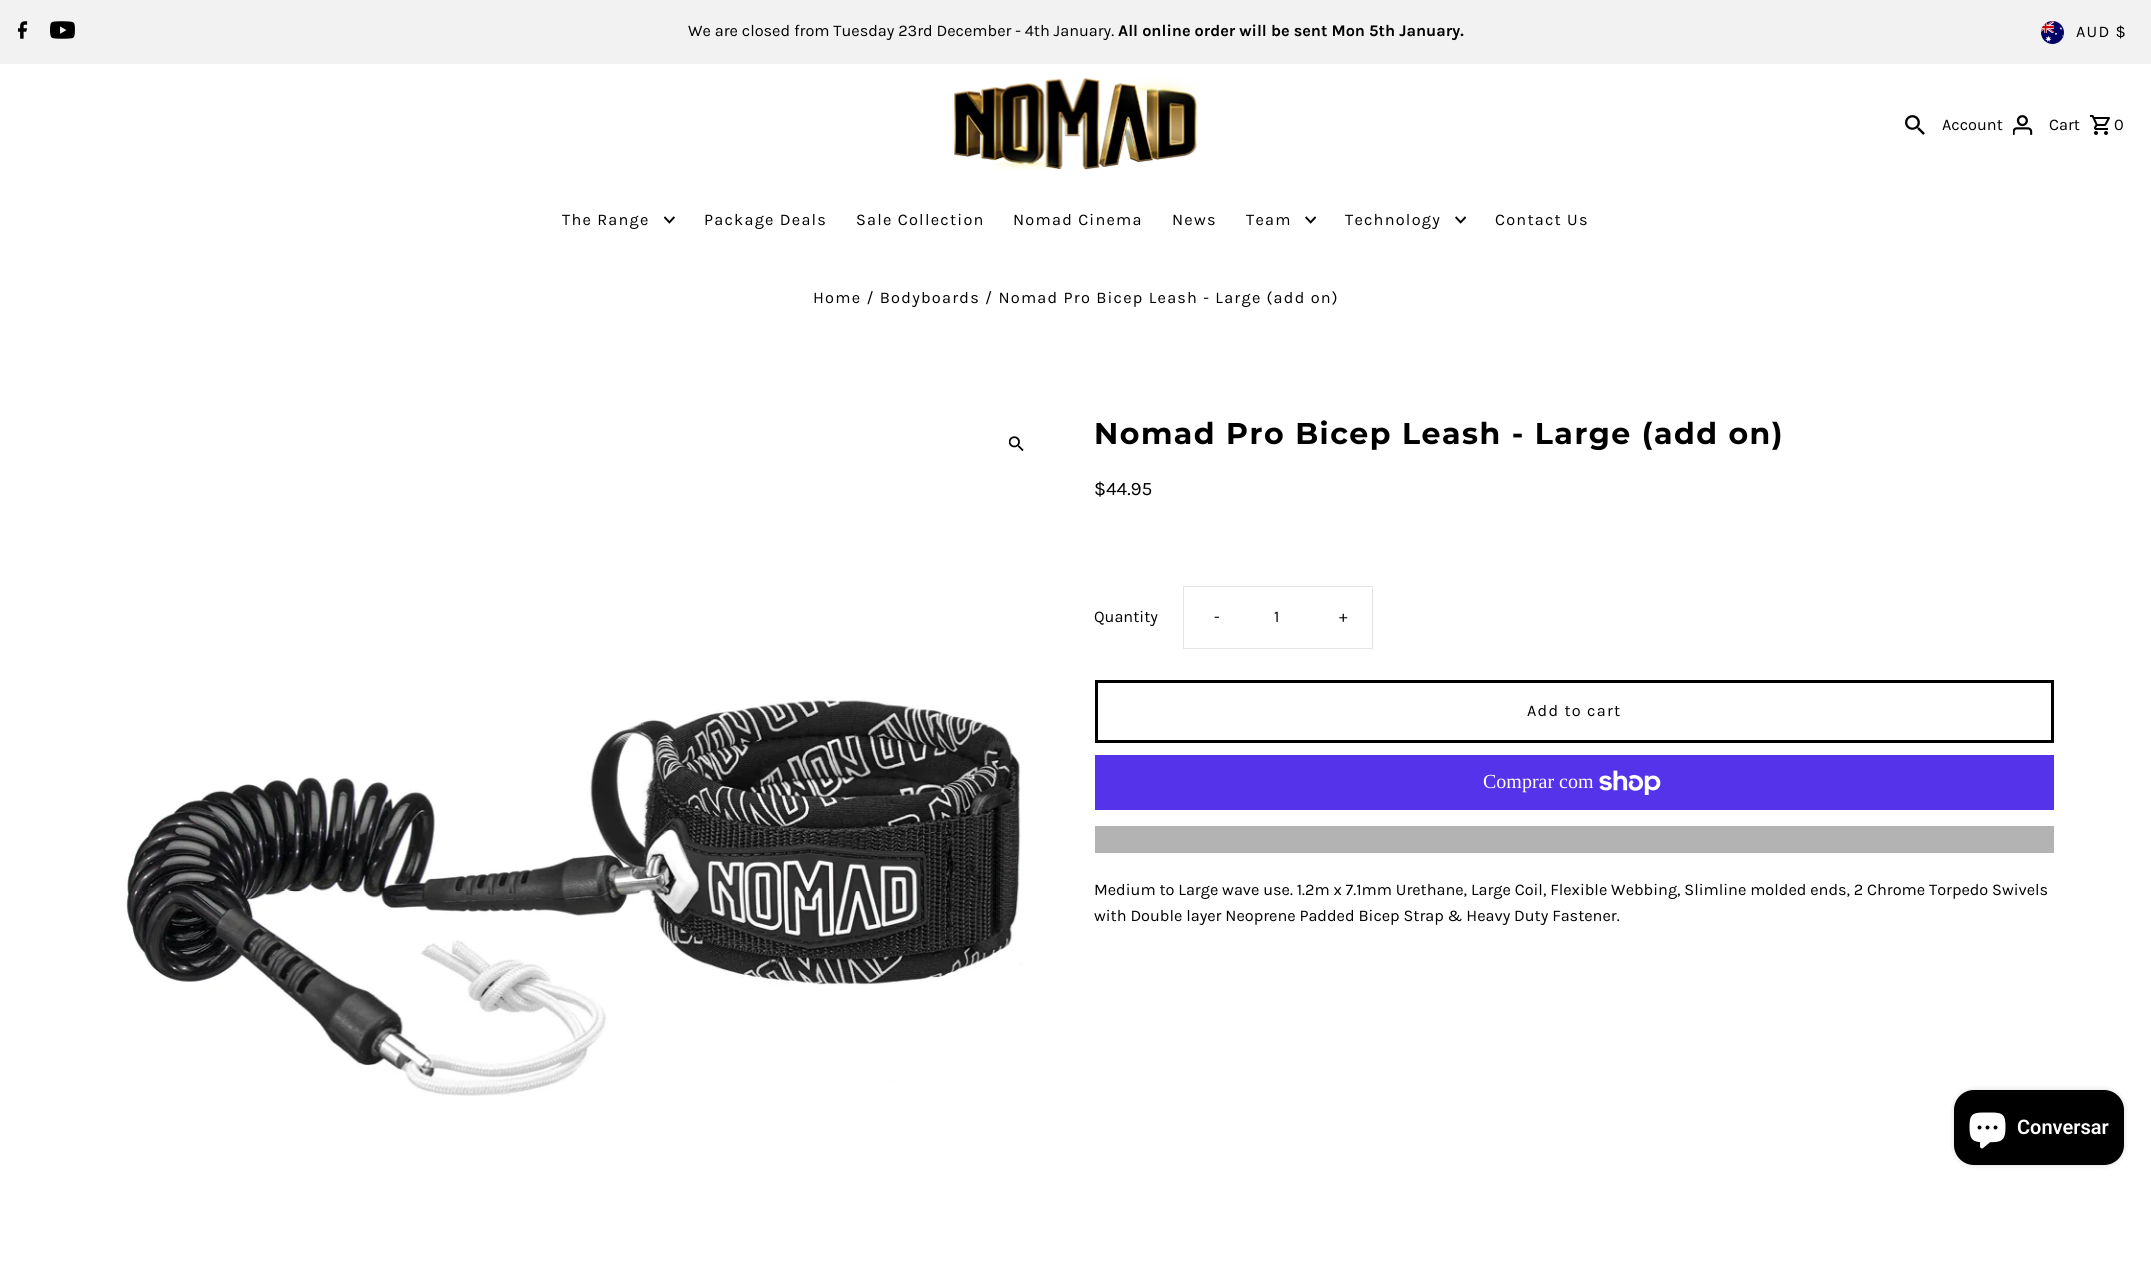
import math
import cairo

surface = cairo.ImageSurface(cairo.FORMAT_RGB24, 2151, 1271)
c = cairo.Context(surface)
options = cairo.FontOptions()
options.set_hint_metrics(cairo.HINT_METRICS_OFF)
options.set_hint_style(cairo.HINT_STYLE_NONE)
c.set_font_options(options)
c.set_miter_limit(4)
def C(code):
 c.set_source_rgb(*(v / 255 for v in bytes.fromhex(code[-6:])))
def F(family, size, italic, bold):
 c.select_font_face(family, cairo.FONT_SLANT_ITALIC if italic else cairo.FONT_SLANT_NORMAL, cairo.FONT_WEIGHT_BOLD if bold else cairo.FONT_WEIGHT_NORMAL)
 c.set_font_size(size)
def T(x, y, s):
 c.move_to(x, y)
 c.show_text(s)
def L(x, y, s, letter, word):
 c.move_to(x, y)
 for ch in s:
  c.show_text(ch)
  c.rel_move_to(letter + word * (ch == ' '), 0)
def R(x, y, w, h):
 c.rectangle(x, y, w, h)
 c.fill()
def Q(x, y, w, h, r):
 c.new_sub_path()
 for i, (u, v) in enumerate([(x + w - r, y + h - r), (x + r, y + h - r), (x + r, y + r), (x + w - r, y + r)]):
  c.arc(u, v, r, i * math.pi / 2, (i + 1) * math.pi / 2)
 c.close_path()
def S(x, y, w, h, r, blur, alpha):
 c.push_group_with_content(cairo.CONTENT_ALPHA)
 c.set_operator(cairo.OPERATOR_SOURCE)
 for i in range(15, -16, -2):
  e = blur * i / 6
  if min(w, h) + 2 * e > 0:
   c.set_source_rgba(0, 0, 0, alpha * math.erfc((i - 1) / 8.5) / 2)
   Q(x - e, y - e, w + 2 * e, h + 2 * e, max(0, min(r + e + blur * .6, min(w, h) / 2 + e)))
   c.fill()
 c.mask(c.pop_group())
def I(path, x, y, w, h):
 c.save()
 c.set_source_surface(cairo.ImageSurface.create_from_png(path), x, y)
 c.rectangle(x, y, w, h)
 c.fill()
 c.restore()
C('ffffff')
c.paint()
C('f2f2f2')
R(0,0,2151,64)
I('1.png',18,21,10,18)
I('2.png',50,21,25,18)
F('Karla',16.25,0,0)
C('000000')
T(688,36,'We are closed from Tuesday 23rd December - 4th January.')
F('Karla',16.25,0,1)
T(1118,36,'All online order will be sent Mon 5th January.')
I('3.png',2041,21,23,23)
F('Karla',16.25,0,0)
L(2076,37,'AUD $',1.25,0)
I('4.png',954,78,246,92)
I('5.png',1905,115,20,20)
T(1942,130,'Account')
I('6.png',2013,115,20,20)
T(2049,130,'Cart')
I('7.png',2090,115,20,20)
T(2114,130,'0')
L(562,225,'The Range',1.25,0)
I('8.png',664,216,11,8)
L(704,225,'Package Deals',1.25,0)
L(856,225,'Sale Collection',1.25,0)
L(1013,225,'Nomad Cinema',1.25,0)
L(1172,225,'News',1.25,0)
L(1246,225,'Team',1.25,0)
I('9.png',1305,216,11,8)
L(1345,225,'Technology',1.25,0)
I('9.png',1455,216,11,8)
L(1495,225,'Contact Us',1.25,0)
L(813,303,'Home / Bodyboards / Nomad Pro Bicep Leash - Large (add on)',1.25,0)
I('10.png',1009,436,15,15)
I('11.png',124,698,899,398)
F('Montserrat',30,0,1)
L(1094,444,'Nomad Pro Bicep Leash - Large (add on)',1.5,0)
F('Karla',19,0,0)
T(1094,495,'$44.95')
F('Karla',16.25,0,0)
T(1094,622,'Quantity')
c.rectangle(1183.5,586.5,189,62)
C('e5e5e5')
c.set_line_width(1)
c.stroke()
C('000000')
L(1214,622,'-',1.25,0)
T(1274,622,'1')
L(1339,622,'+',1.25,0)
c.rectangle(1096.5,681.5,956,60)
c.set_line_width(3)
c.stroke()
L(1527,716,'Add to cart',1.25,0)
C('5433eb')
R(1095,755,959,55)
F('Liberation Serif',20,0,0)
C('ffffff')
T(1483,788,'Comprar com')
I('12.png',1599,770,62,25)
C('b3b3b3')
R(1095,826,959,27)
F('Karla',16.25,0,0)
C('000000')
T(1094,895,'Medium to Large wave use. 1.2m x 7.1mm Urethane, Large Coil, Flexible Webbing, Slimline molded ends, 2 Chrome Torpedo Swivels')
T(1094,921,'with Double layer Neoprene Padded Bicep Strap & Heavy Duty Fastener.')
C('000000')
S(1954,1090,170,75,20,3,.15)
C('000000')
Q(1954,1090,170,75,20)
c.fill()
I('13.png',1969,1112,37,37)
F('Roboto SemiBold',20,0,0)
C('ffffff')
T(2017,1134,'Conversar')
surface.write_to_png('o.png')
